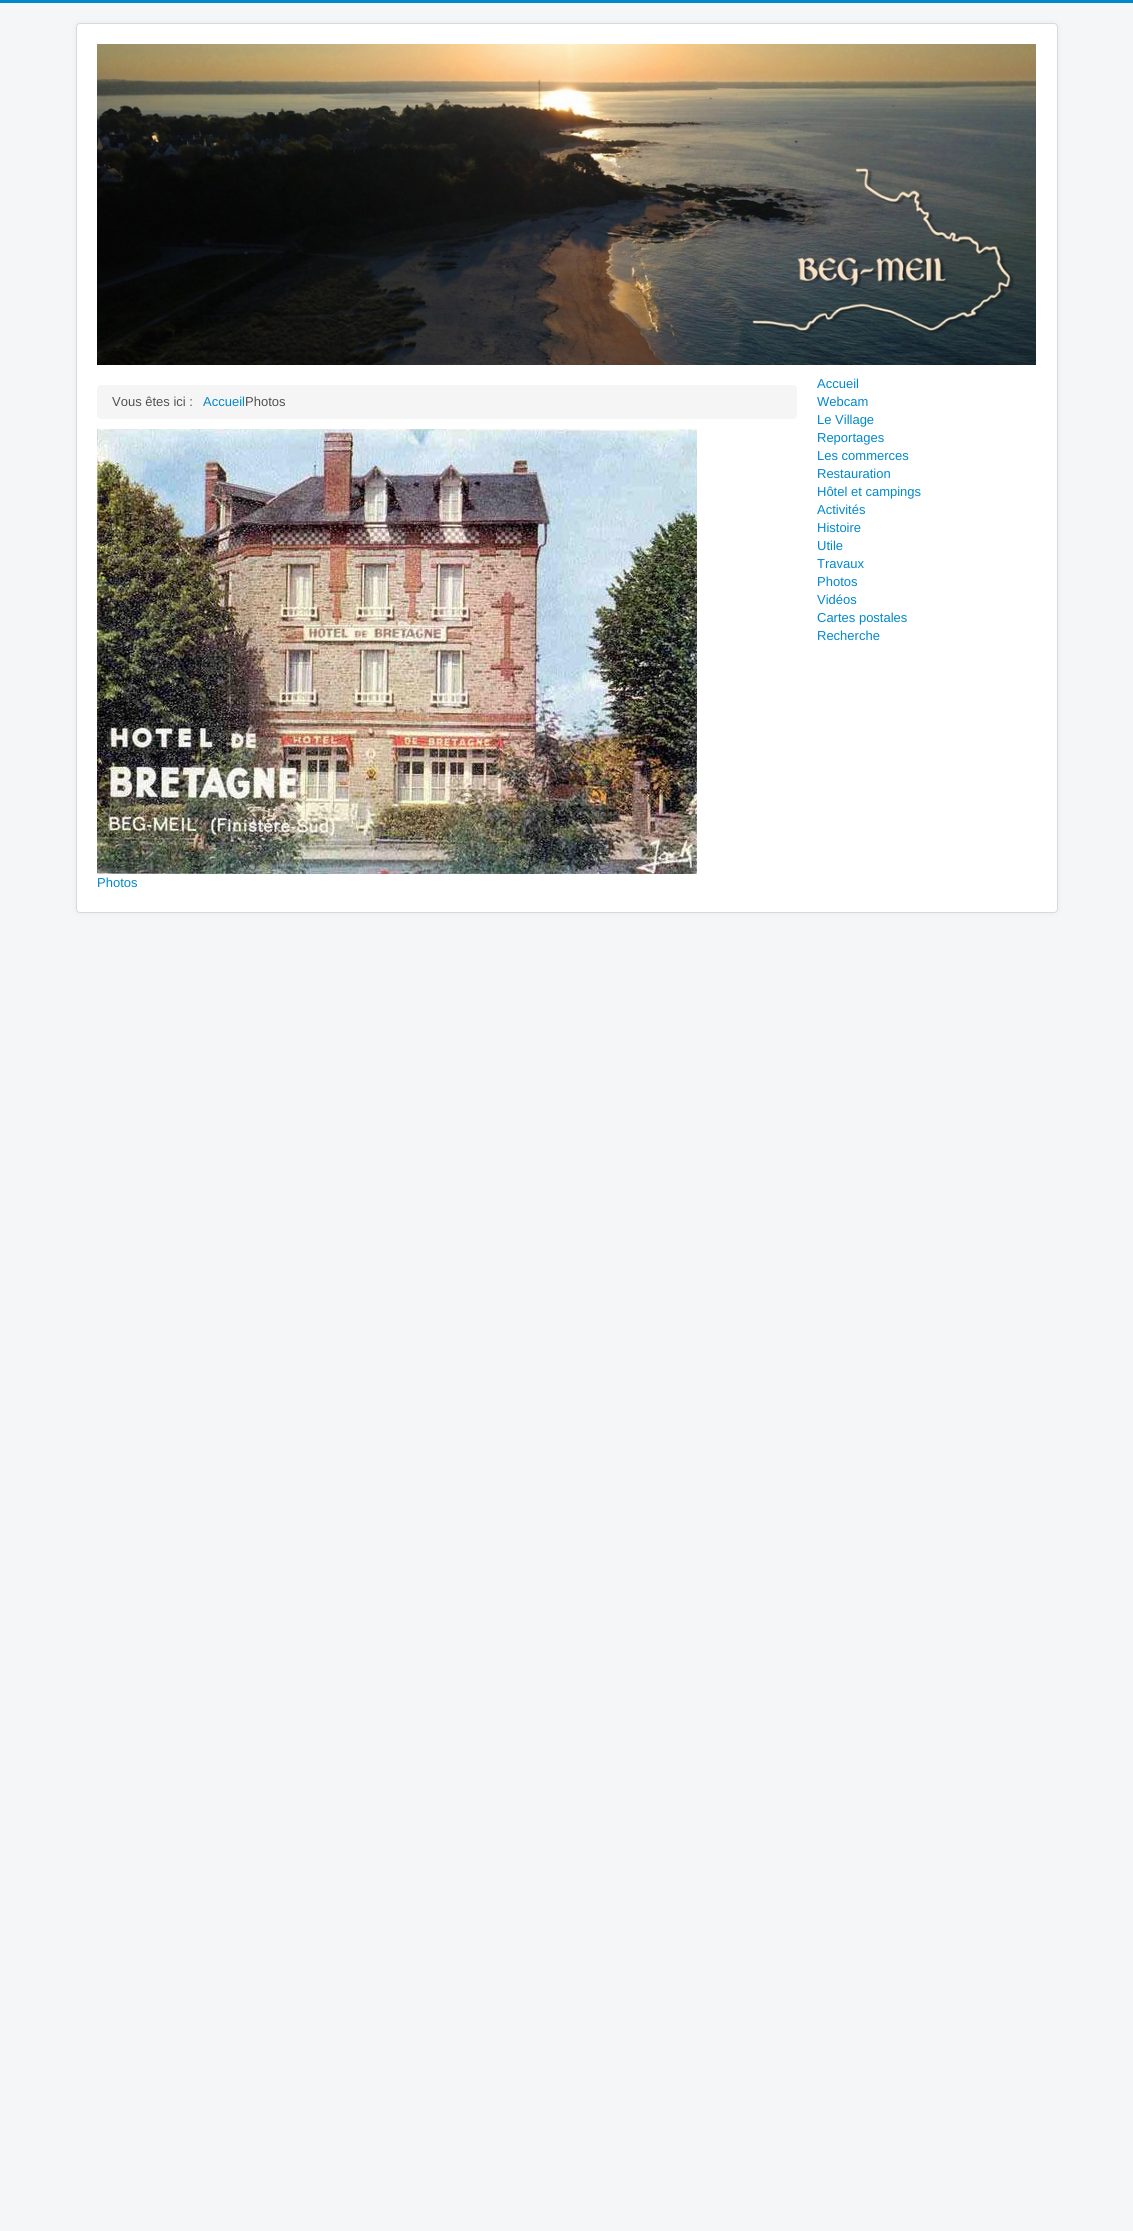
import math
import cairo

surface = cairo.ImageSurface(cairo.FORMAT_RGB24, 1133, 2231)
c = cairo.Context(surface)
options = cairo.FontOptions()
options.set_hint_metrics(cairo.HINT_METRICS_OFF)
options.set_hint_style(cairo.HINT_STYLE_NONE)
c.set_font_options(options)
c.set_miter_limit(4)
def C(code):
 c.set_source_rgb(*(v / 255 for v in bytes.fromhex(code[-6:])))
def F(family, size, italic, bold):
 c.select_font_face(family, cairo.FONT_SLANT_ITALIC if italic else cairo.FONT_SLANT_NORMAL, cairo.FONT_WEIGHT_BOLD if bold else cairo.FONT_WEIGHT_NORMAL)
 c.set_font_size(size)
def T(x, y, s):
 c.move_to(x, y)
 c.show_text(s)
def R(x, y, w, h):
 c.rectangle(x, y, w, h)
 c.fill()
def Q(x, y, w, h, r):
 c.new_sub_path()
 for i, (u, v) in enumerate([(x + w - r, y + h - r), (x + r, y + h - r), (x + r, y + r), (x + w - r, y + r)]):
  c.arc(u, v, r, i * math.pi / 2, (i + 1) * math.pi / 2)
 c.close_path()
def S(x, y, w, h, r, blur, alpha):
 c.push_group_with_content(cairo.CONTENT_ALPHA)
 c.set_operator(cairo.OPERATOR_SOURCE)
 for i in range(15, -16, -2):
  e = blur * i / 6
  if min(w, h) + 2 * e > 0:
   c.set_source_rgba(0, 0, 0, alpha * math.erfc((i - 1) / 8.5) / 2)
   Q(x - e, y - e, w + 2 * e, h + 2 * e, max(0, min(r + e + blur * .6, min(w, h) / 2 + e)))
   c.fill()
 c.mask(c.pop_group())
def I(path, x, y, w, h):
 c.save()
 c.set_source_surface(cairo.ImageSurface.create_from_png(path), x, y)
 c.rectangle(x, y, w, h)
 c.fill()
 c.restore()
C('f4f6f7')
c.paint()
C('0088cc')
R(0,0,1133,3)
C('000000')
S(76,23,982,890,4,3,.05)
C('ffffff')
Q(76,23,982,890,4)
c.fill()
Q(76.5,23.5,981,889,3.5)
c.set_source_rgba(0,0,0,0.15)
c.set_line_width(1)
c.stroke()
I('1.png',97,44,939,321)
C('f5f5f5')
Q(97,385,700,34,4)
c.fill()
F('Liberation Sans',13,0,0)
C('515151')
T(112,406,'Vous êtes ici :')
C('0088cc')
T(203,406,'Accueil')
C('515151')
T(245,406,'Photos')
I('2.png',97,429,600,445)
C('0088cc')
T(97,887,'Photos')
T(817,388,'Accueil')
T(817,406,'Webcam')
T(817,424,'Le Village')
T(817,442,'Reportages')
T(817,460,'Les commerces')
T(817,478,'Restauration')
T(817,496,'Hôtel et campings')
T(817,514,'Activités')
T(817,532,'Histoire')
T(817,550,'Utile')
T(817,568,'Travaux')
T(817,586,'Photos')
T(817,604,'Vidéos')
T(817,622,'Cartes postales')
T(817,640,'Recherche')
surface.write_to_png('o.png')
